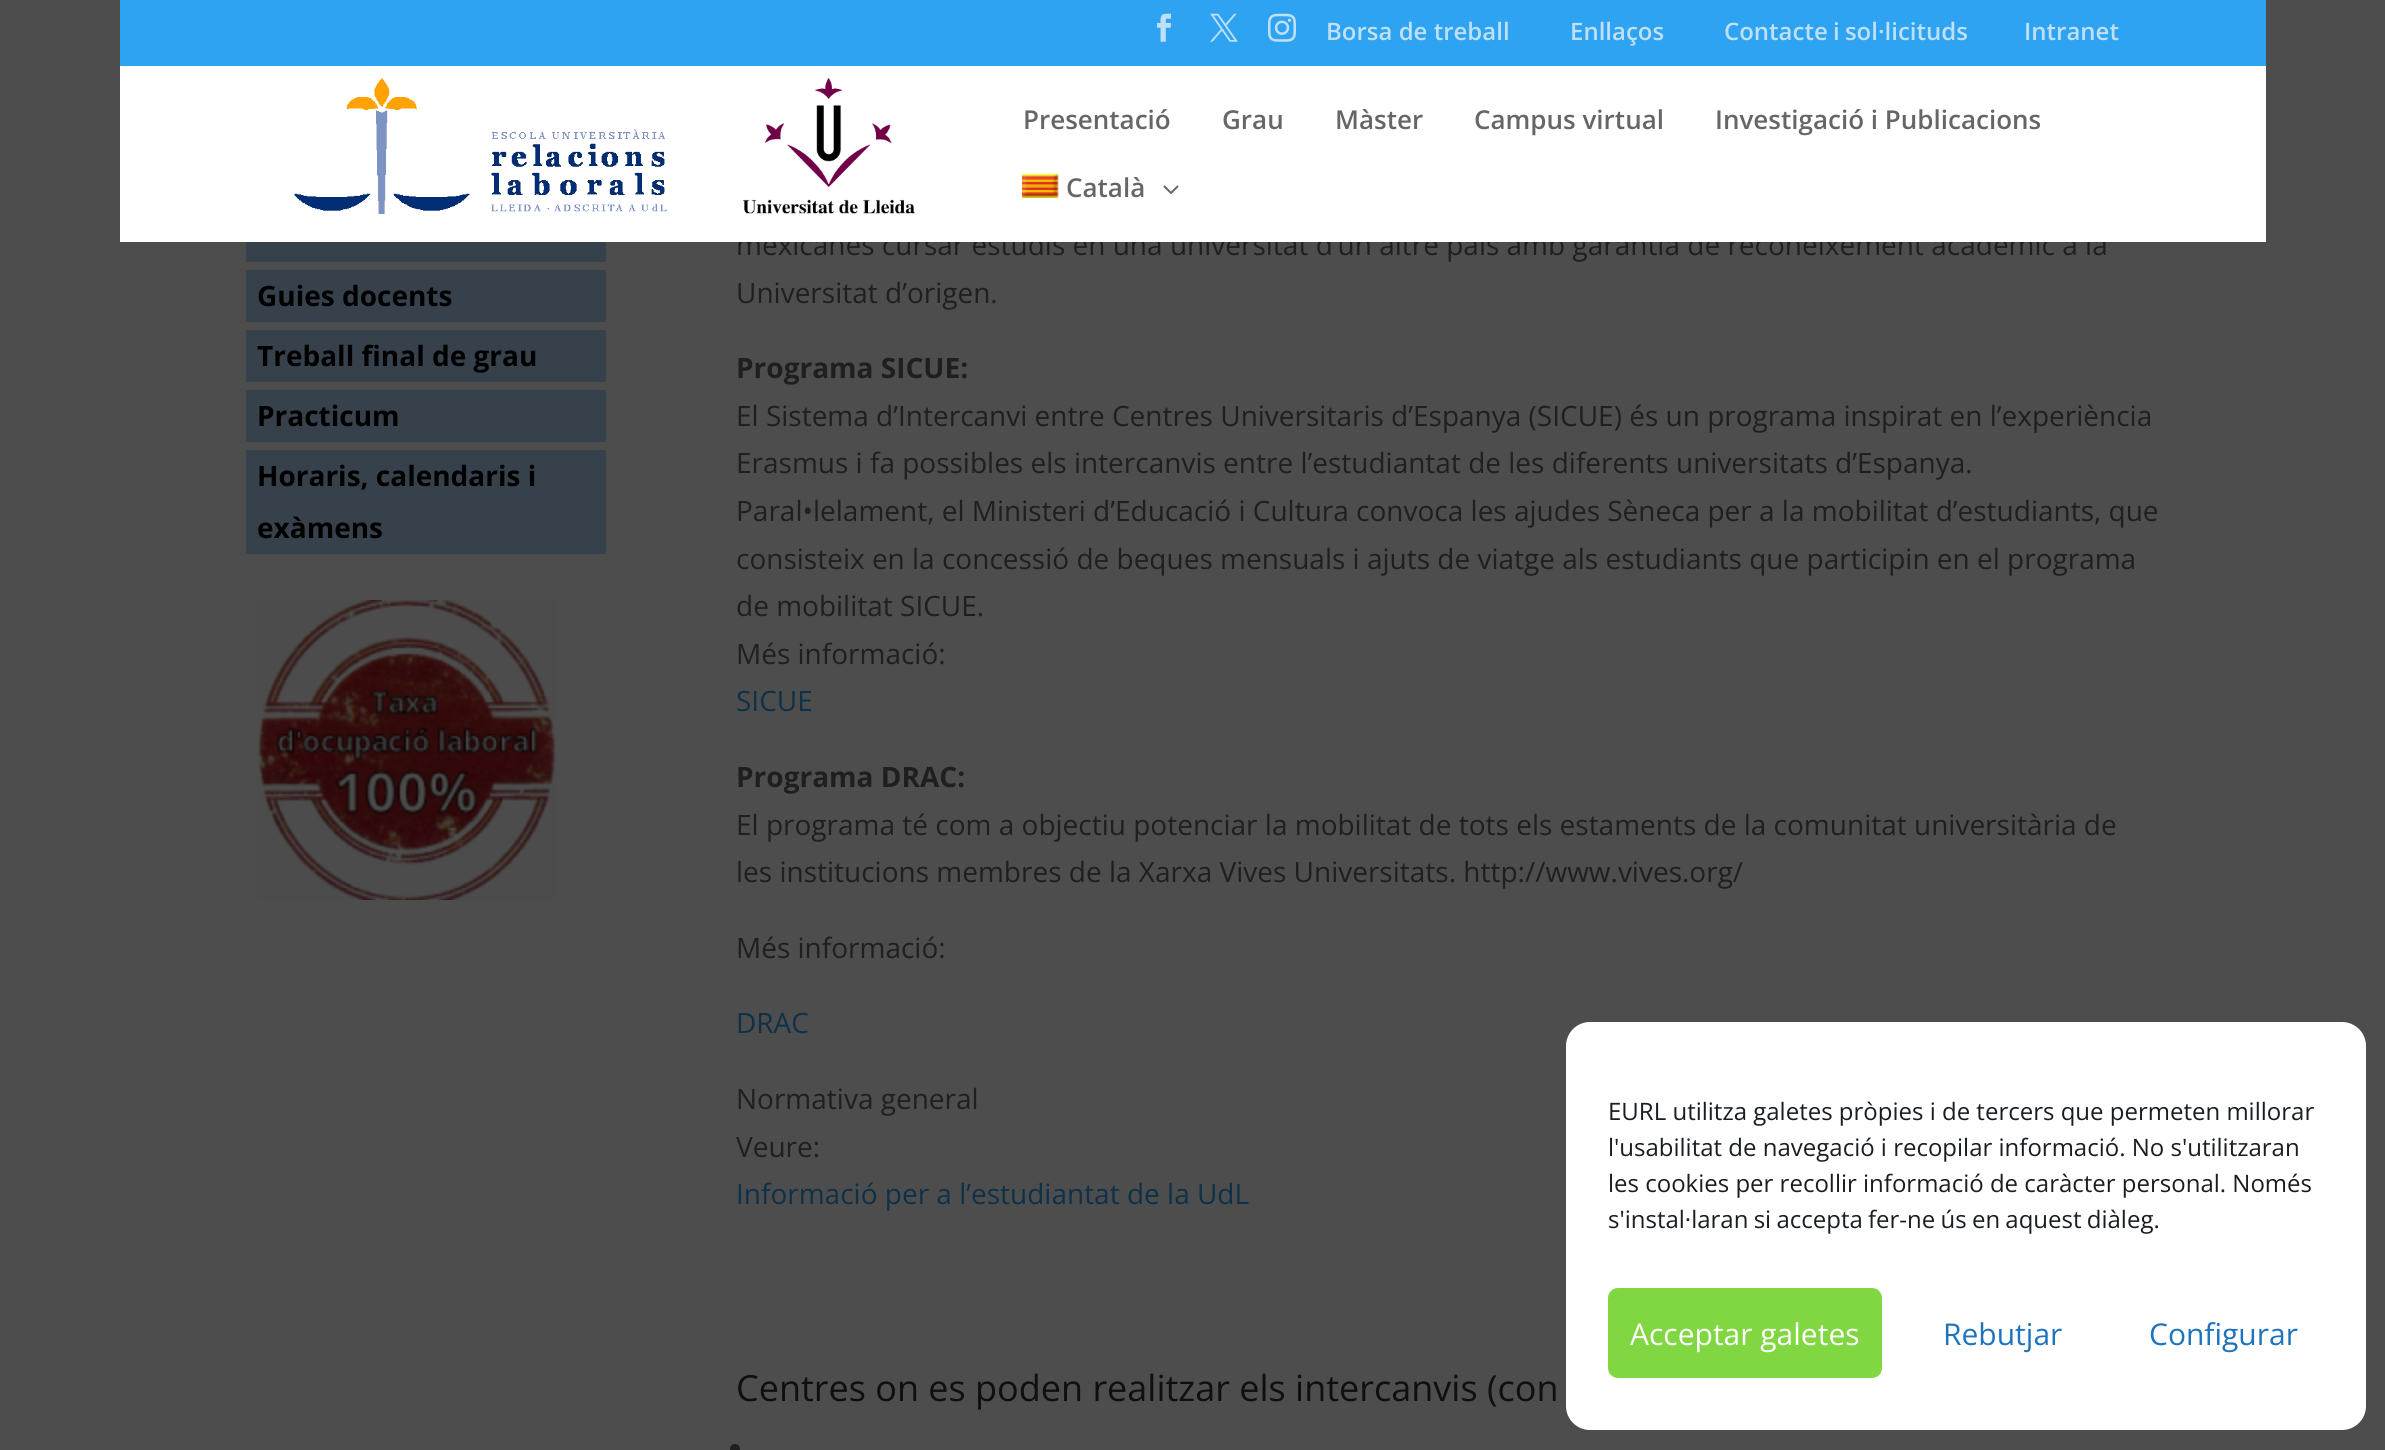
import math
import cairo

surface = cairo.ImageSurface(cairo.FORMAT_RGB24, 2385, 1450)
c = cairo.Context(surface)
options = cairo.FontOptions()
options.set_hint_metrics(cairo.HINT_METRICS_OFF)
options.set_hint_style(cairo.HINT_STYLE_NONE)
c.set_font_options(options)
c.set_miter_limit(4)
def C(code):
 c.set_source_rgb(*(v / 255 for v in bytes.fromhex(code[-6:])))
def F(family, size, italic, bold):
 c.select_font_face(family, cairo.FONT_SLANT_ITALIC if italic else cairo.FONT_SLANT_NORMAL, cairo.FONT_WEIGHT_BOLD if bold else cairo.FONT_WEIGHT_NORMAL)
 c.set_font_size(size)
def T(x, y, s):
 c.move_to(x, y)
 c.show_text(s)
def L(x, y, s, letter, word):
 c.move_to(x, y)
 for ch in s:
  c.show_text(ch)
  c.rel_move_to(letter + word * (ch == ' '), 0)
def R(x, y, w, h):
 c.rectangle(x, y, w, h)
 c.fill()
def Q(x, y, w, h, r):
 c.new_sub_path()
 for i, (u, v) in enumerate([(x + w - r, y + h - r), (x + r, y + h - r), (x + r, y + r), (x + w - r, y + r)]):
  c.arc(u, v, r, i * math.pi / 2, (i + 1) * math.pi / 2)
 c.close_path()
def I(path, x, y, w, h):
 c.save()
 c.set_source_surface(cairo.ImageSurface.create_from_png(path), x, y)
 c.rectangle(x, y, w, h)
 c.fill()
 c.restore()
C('4d4d4d')
c.paint()
C('2ea3f2')
R(120,0,2146,66)
I('1.png',1157,13,14,29)
I('2.png',1210,13,28,29)
I('3.png',1268,13,28,29)
F('Open Sans SemiBold',24,0,0)
C('c0e0f8')
T(1326,40,'Borsa de treball')
T(1570,40,'Enllaços')
L(1724,40,'Contacte i sol·licituds',0,-1)
T(2024,40,'Intranet')
F('Open Sans',28,0,0)
C('1f1f1f')
T(736,255,'mexicanes cursar estudis en una universitat d’un altre país amb garantia de reconeixement acadèmic a la')
C('ffffff')
R(120,66,2146,176)
I('4.png',294,78,621,136)
F('Open Sans SemiBold',26,0,0)
C('666666')
T(1023,129,'Presentació')
T(1222,129,'Grau')
T(1335,129,'Màster')
T(1474,129,'Campus virtual')
T(1715,129,'Investigació i Publicacions')
I('5.png',1022,173,37,25)
T(1066,197,'Català')
I('6.png',1163,185,16,9)
C('37414c')
R(246,242,360,20)
R(246,270,360,52)
F('Open Sans',28,0,1)
C('000000')
T(257,306,'Guies docents')
C('37414c')
R(246,330,360,52)
C('000000')
T(257,366,'Treball final de grau')
C('37414c')
R(246,390,360,52)
C('000000')
T(257,426,'Practicum')
C('37414c')
R(246,450,360,104)
C('000000')
T(257,486,'Horaris, calendaris i')
T(257,538,'exàmens')
I('7.png',257,600,299,300)
F('Open Sans',28,0,0)
C('1f1f1f')
T(736,303,'Universitat d’origen.')
F('Open Sans',28,0,1)
T(736,378,'Programa SICUE:')
F('Open Sans',28,0,0)
T(736,426,'El Sistema d’Intercanvi entre Centres Universitaris d’Espanya (SICUE) és un programa inspirat en l’experiència')
T(736,473,'Erasmus i fa possibles els intercanvis entre l’estudiantat de les diferents universitats d’Espanya.')
T(736,521,'Paral•lelament, el Ministeri d’Educació i Cultura convoca les ajudes Sèneca per a la mobilitat d’estudiants, que')
T(736,569,'consisteix en la concessió de beques mensuals i ajuts de viatge als estudiants que participin en el programa')
T(736,616,'de mobilitat SICUE.')
T(736,664,'Més informació:')
C('0e3149')
T(736,711,'SICUE')
F('Open Sans',28,0,1)
C('1f1f1f')
T(736,787,'Programa DRAC:')
F('Open Sans',28,0,0)
T(736,835,'El programa té com a objectiu potenciar la mobilitat de tots els estaments de la comunitat universitària de')
T(736,882,'les institucions membres de la Xarxa Vives Universitats. http://www.vives.org/')
T(736,958,'Més informació:')
C('0e3149')
T(736,1033,'DRAC')
C('1f1f1f')
T(736,1109,'Normativa general')
T(736,1157,'Veure:')
C('0e3149')
T(736,1204,'Informació per a l’estudiantat de la UdL')
F('Open Sans',36,0,0)
C('0f0f0f')
T(736,1401,'Centres on es poden realitzar els intercanvis (con')
C('1f1f1f')
c.new_path()
c.arc(735,1449,5,0,2 * math.pi)
c.fill()
C('ffffff')
Q(1567,1023,798,406,23)
c.fill_preserve()
c.stroke()
F('Open Sans',24,0,0)
C('191e23')
T(1608,1120,'EURL utilitza galetes pròpies i de tercers que permeten millorar')
T(1608,1156,'l\'usabilitat de navegació i recopilar informació. No s\'utilitzaran')
T(1608,1192,'les cookies per recollir informació de caràcter personal. Només')
L(1608,1228,'s\'instal·laran si accepta fer-ne ús en aquest diàleg.',0,-1)
C('81d742')
Q(1609,1289,272,88,9)
c.fill_preserve()
c.stroke()
F('Open Sans',30,0,0)
C('ffffff')
T(1630,1345,'Acceptar galetes')
C('1e73be')
T(1943,1345,'Rebutjar')
T(2149,1345,'Configurar')
surface.write_to_png('o.png')
